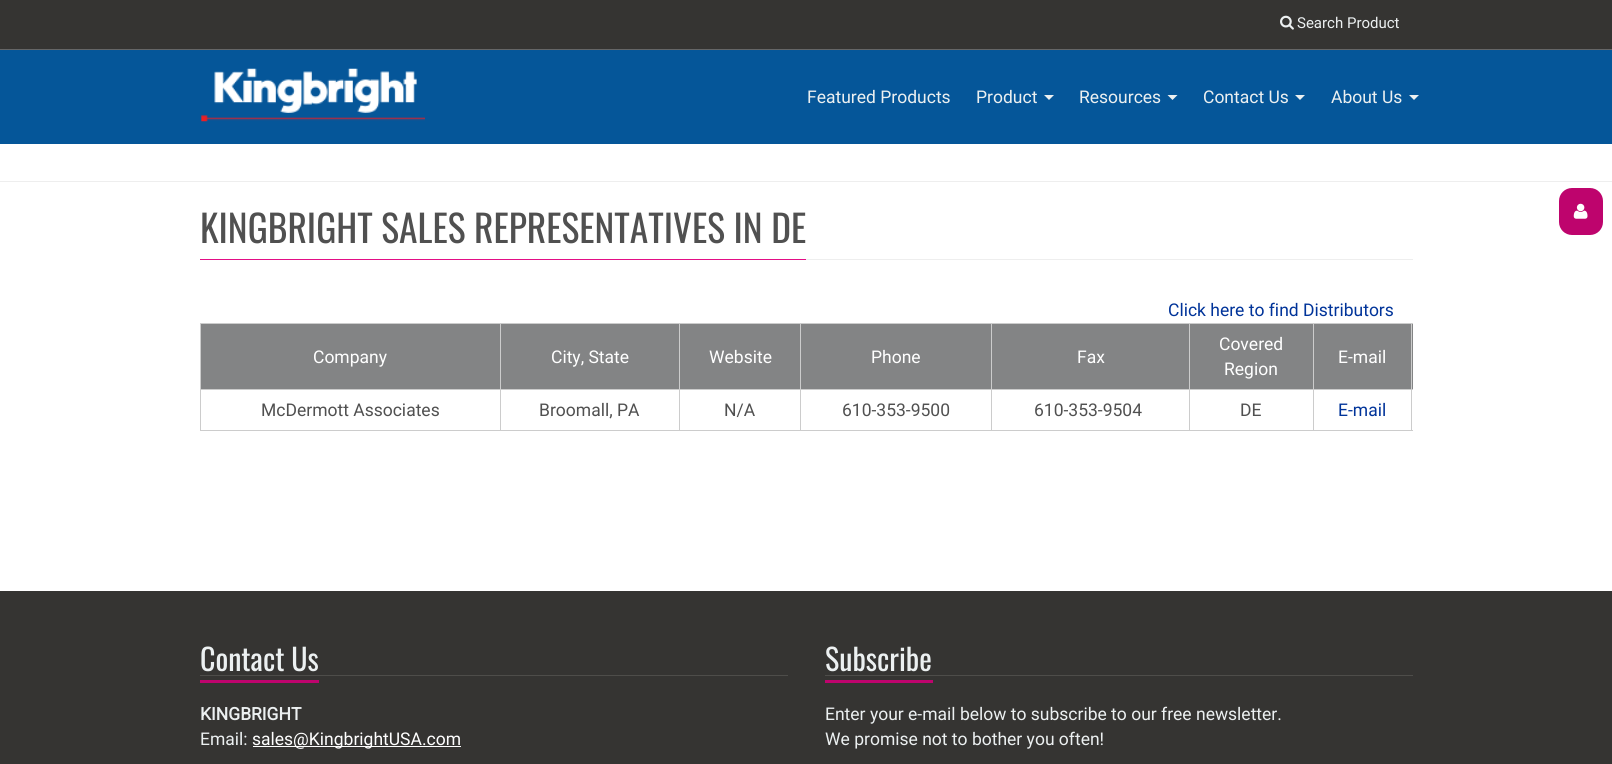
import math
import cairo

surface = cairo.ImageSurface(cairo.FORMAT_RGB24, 1612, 764)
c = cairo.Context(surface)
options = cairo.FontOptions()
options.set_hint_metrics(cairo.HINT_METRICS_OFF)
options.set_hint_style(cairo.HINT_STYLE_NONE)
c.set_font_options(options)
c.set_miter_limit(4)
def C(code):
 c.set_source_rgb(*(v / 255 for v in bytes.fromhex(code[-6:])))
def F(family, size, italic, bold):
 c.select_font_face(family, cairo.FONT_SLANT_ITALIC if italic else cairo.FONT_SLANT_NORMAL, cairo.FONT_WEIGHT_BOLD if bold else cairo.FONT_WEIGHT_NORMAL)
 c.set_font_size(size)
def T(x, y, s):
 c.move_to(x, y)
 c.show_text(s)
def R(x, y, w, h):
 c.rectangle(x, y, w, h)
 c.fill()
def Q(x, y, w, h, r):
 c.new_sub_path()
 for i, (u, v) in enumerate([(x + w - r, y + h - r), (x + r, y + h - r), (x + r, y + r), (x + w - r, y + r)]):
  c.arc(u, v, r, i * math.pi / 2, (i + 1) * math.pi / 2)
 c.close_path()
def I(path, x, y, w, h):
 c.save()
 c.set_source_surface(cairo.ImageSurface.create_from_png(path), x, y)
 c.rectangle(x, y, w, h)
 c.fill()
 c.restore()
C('ffffff')
c.paint()
C('353432')
R(0,0,1612,49)
C('666666')
R(0,49,1612,1)
I('1.png',1280,15,14,15)
F('Roboto',15,0,0)
C('ecf0f1')
T(1297,28,'Search Product')
C('055699')
R(0,50,1612,94)
I('2.png',201,68,224,54)
F('Roboto',17.5,0,0)
C('ecf0f1')
T(807,103,'Featured Products')
T(976,103,'Product')
c.new_path()
c.move_to(1044,95)
c.line_to(1054,95)
c.line_to(1049,100)
c.close_path()
c.fill()
T(1079,103,'Resources')
c.new_path()
c.move_to(1167.5,95)
c.line_to(1177.5,95)
c.line_to(1172.5,100)
c.close_path()
c.fill()
T(1203,103,'Contact Us')
c.new_path()
c.move_to(1295,95)
c.line_to(1305,95)
c.line_to(1300,100)
c.close_path()
c.fill()
T(1331,103,'About Us')
c.new_path()
c.move_to(1409,95)
c.line_to(1419,95)
c.line_to(1414,100)
c.close_path()
c.fill()
C('eeeeee')
R(0,181,1612,1)
R(806,259,607,1)
F('Oswald',37.5,0,0)
C('505050')
T(200,243,'KINGBRIGHT SALES REPRESENTATIVES IN DE')
C('e30e86')
R(200,259,606,1)
F('Roboto',17.5,0,0)
C('003399')
T(1168,316,'Click here to find Distributors')
C('838485')
R(201,324,299,65)
C('cccccc')
R(1313,323,100,1)
R(1313,389,100,1)
R(1411,389,1,42)
R(1313,430,100,1)
R(1313,389,1,42)
R(1189,389,125,1)
R(1313,323,1,67)
R(1189,323,125,1)
R(1189,430,125,1)
R(1189,389,1,42)
R(991,389,199,1)
R(1189,323,1,67)
R(991,323,199,1)
R(991,430,199,1)
R(991,389,1,42)
R(800,389,193,1)
R(991,323,1,67)
R(800,323,193,1)
R(800,430,193,1)
R(800,389,1,42)
R(679,389,122,1)
R(800,323,1,67)
R(679,323,122,1)
R(679,430,122,1)
R(679,389,1,42)
R(500,389,180,1)
R(679,323,1,67)
R(500,323,180,1)
R(500,430,180,1)
R(500,389,1,42)
R(200,389,301,1)
R(500,323,1,67)
R(200,323,301,1)
R(200,430,301,1)
R(200,389,1,42)
R(200,323,1,67)
C('ffffff')
T(313,363,'Company')
C('838485')
R(501,324,178,65)
C('ffffff')
T(551,363,'City, State')
C('838485')
R(680,324,120,65)
C('ffffff')
T(709,363,'Website')
C('838485')
R(801,324,190,65)
C('ffffff')
T(871,363,'Phone')
C('838485')
R(992,324,197,65)
C('ffffff')
T(1077,363,'Fax')
C('838485')
R(1190,324,123,65)
C('ffffff')
T(1219,350,'Covered')
T(1224,375,'Region')
C('838485')
R(1314,324,99,65)
C('cccccc')
R(1411,323,1,67)
C('ffffff')
T(1338,363,'E-mail')
C('505050')
T(261,416,'McDermott Associates')
T(539,416,'Broomall, PA')
T(724,416,'N/A')
T(842,416,'610-353-9500')
T(1034,416,'610-353-9504')
T(1240,416,'DE')
C('003399')
T(1338,416,'E-mail')
C('be046d')
Q(1559,188,44,47,13)
c.fill()
I('3.png',1573,203,15,16)
C('353432')
R(0,591,1612,173)
C('4e4d4a')
R(200,675,588,1)
F('Oswald',30,0,0)
C('ecf0f1')
T(200,671,'Contact Us')
C('be046d')
R(200,680,119,3)
F('Roboto',17.5,0,1)
C('ecf0f1')
T(200,720,'KINGBRIGHT')
F('Roboto',17.5,0,0)
T(200,745,'Email:')
C('ffffff')
R(253,746,208,1)
T(252,745,'sales@KingbrightUSA.com')
C('4e4d4a')
R(825,675,588,1)
F('Oswald',30,0,0)
C('ecf0f1')
T(825,671,'Subscribe')
C('be046d')
R(825,680,108,3)
F('Roboto',17.5,0,0)
C('ecf0f1')
T(825,720,'Enter your e-mail below to subscribe to our free newsletter.')
T(825,745,'We promise not to bother you often!')
surface.write_to_png('o.png')
